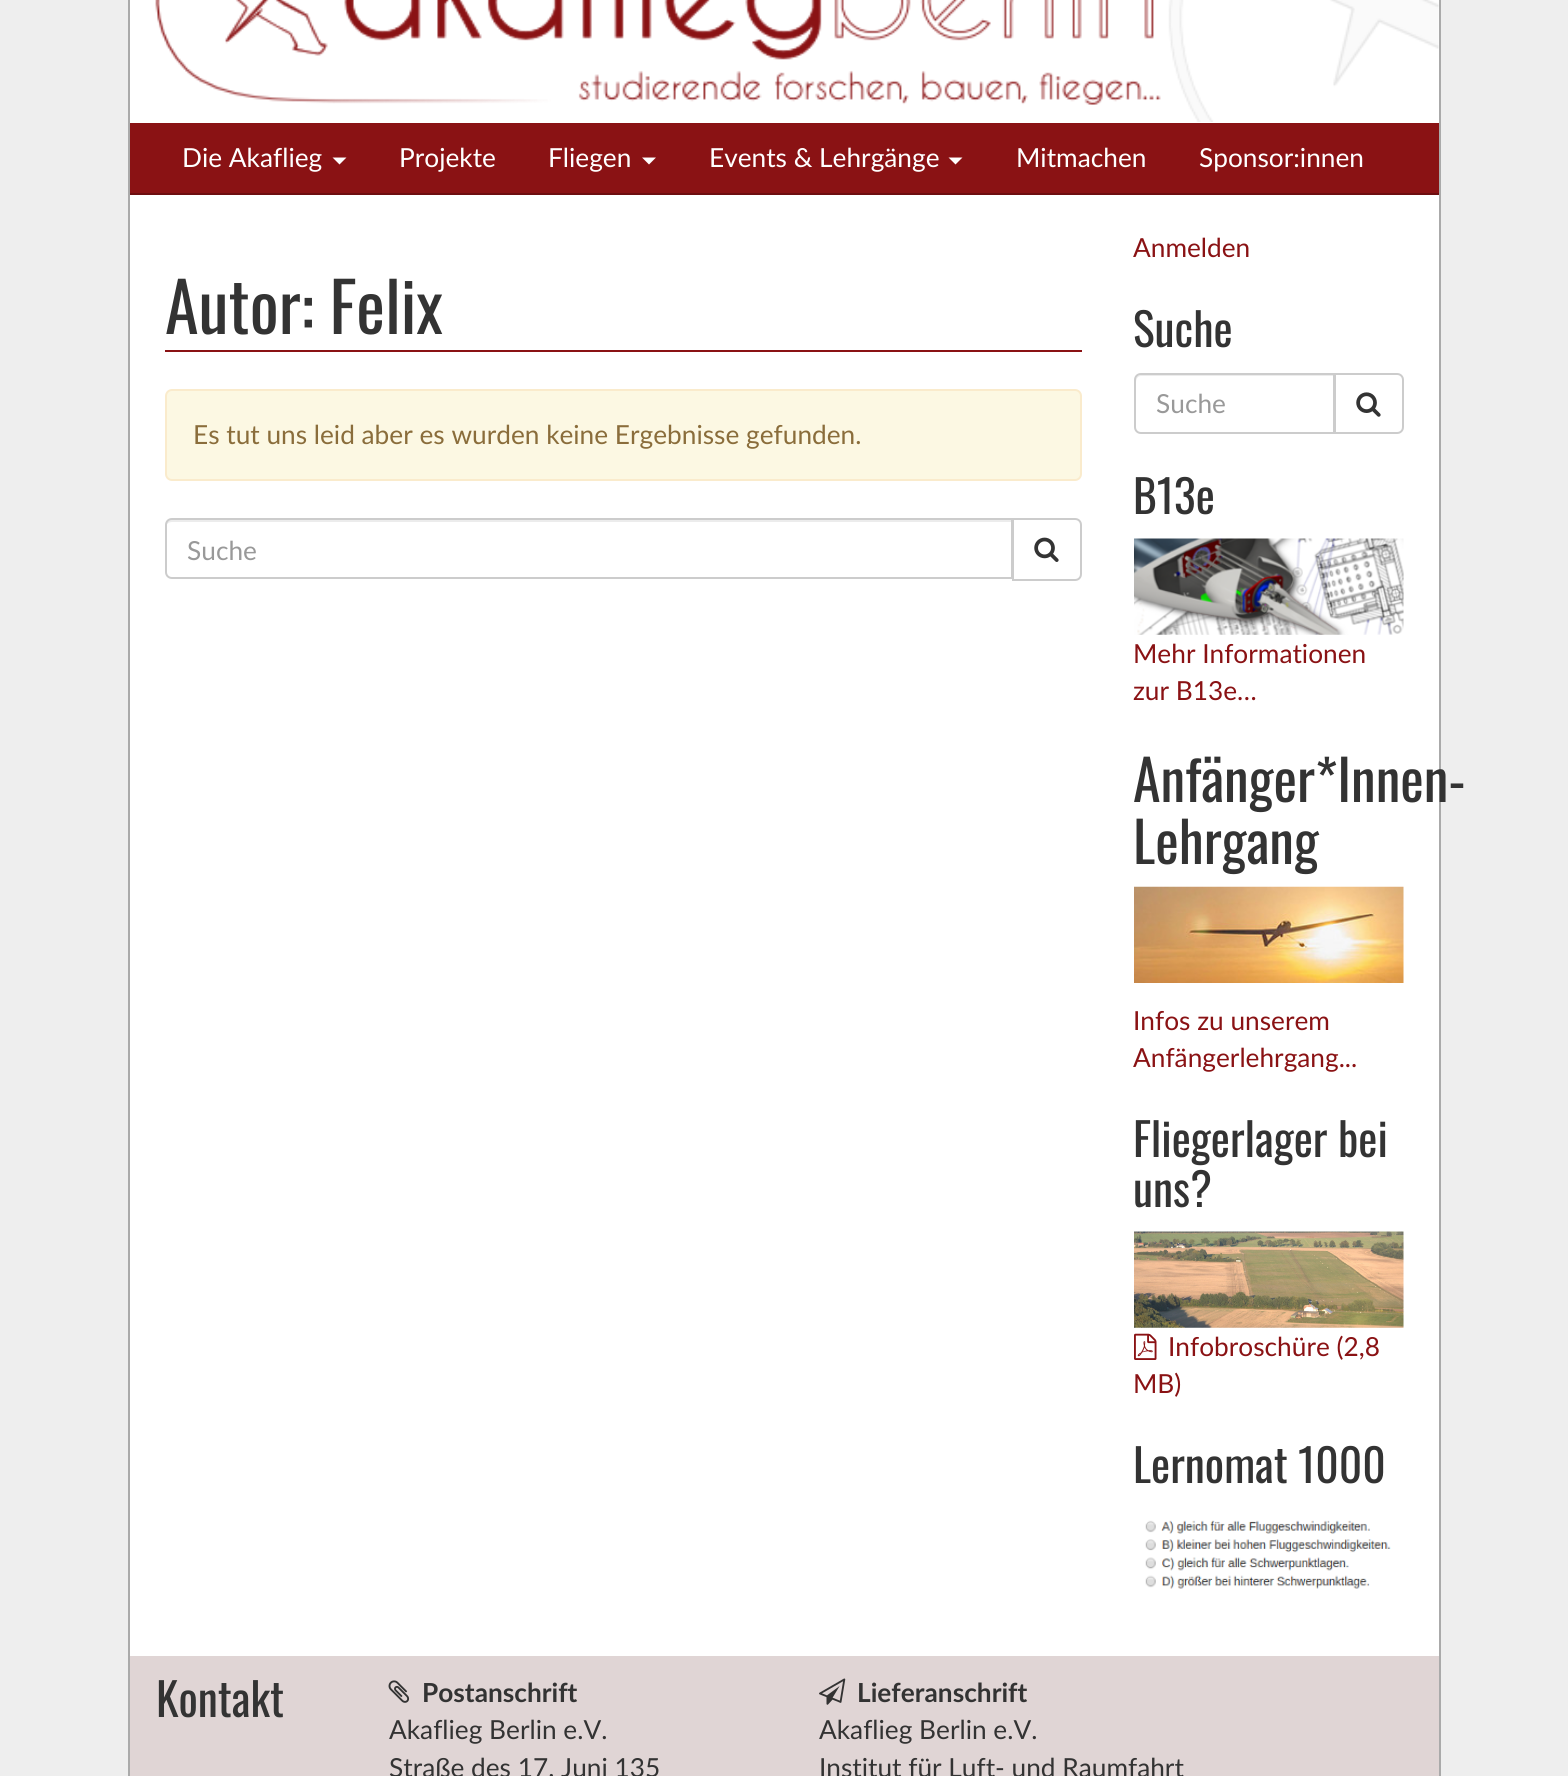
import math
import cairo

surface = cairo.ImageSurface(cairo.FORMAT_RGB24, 1568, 1776)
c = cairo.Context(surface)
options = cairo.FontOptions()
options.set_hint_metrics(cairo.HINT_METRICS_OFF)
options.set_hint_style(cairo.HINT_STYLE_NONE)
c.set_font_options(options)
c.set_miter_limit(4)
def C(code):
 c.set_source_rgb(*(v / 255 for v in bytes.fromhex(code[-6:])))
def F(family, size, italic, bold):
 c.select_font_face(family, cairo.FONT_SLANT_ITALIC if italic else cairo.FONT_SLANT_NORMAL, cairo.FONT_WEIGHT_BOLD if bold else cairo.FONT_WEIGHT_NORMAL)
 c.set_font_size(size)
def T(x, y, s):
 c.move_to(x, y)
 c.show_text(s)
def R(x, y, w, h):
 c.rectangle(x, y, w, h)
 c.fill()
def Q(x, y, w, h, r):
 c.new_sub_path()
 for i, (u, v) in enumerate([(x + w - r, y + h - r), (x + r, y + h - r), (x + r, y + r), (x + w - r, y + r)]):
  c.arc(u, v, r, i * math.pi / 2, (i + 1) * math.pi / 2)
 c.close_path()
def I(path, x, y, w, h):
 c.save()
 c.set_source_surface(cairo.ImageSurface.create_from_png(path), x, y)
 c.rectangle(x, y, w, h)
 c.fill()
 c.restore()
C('eeeeee')
c.paint()
C('ffffff')
R(130,0,1309,1656)
C('aaaaaa')
R(1439,0,2,1776)
R(128,0,2,1776)
I('1.png',155,0,1284,122)
C('8a1214')
R(130,123,1309,70)
C('6d0e10')
R(130,193,1309,2)
F('Lato',26.25,0,0)
C('ffffff')
T(182,167,'Die Akaflieg')
c.new_path()
c.move_to(332.5,157.5)
c.line_to(346.5,157.5)
c.line_to(339.5,164.5)
c.close_path()
c.fill()
T(399,167,'Projekte')
T(548,167,'Fliegen')
c.new_path()
c.move_to(642,157.5)
c.line_to(656,157.5)
c.line_to(649,164.5)
c.close_path()
c.fill()
T(709,167,'Events & Lehrgänge')
c.new_path()
c.move_to(948.5,157.5)
c.line_to(962.5,157.5)
c.line_to(955.5,164.5)
c.close_path()
c.fill()
T(1016,167,'Mitmachen')
T(1199,167,'Sponsor:innen')
C('8a1214')
R(165,350,917,2)
F('Oswald',68.25,0,0)
C('333333')
T(165,334,'Autor: Felix')
C('fcf8e3')
Q(166,390,915,90,6)
c.fill_preserve()
C('faebcc')
c.stroke()
F('Lato',26.25,0,0)
C('8a6d3b')
T(193,444,'Es tut uns leid aber es wurden keine Ergebnisse gefunden.')
C('ececec')
c.new_path()
c.move_to(172,522)
c.line_to(1012,522)
c.line_to(1012,520)
c.line_to(171,520)
c.curve_to(167,520,166,524,166,527)
c.curve_to(166,524,169,522,172,522)
c.close_path()
c.fill()
c.new_path()
c.move_to(172,519)
c.line_to(1012,519)
c.line_to(1012,578)
c.line_to(172,578)
c.curve_to(168.5,578,166,575.5,166,572)
c.line_to(166,525)
c.curve_to(166,521.5,168.5,519,172,519)
c.close_path()
C('cccccc')
c.stroke()
C('999999')
T(187,560,'Suche')
C('ffffff')
c.new_path()
c.move_to(1013,519)
c.line_to(1075,519)
c.curve_to(1078.5,519,1081,521.5,1081,525)
c.line_to(1081,574)
c.curve_to(1081,577.5,1078.5,580,1075,580)
c.line_to(1013,580)
c.close_path()
c.fill_preserve()
C('cccccc')
c.stroke()
I('2.png',1034,537,25,25)
C('8a1214')
T(1133,257,'Anmelden')
F('Oswald',45.5,0,0)
C('333333')
T(1133,347,'Suche')
C('ececec')
c.new_path()
c.move_to(1141,376)
c.line_to(1334,376)
c.line_to(1334,375)
c.line_to(1141,375)
c.curve_to(1138,375,1136,377,1136,380)
c.line_to(1136,382)
c.curve_to(1136,379,1138,376,1141,376)
c.close_path()
c.fill()
c.new_path()
c.move_to(1141,374)
c.line_to(1334,374)
c.line_to(1334,433)
c.line_to(1141,433)
c.curve_to(1137.5,433,1135,430.5,1135,427)
c.line_to(1135,380)
c.curve_to(1135,376.5,1137.5,374,1141,374)
c.close_path()
C('cccccc')
c.stroke()
F('Lato',26.25,0,0)
C('999999')
T(1156,413,'Suche')
C('ffffff')
c.new_path()
c.move_to(1335,374)
c.line_to(1397,374)
c.curve_to(1400.5,374,1403,376.5,1403,380)
c.line_to(1403,427)
c.curve_to(1403,430.5,1400.5,433,1397,433)
c.line_to(1335,433)
c.close_path()
c.fill_preserve()
C('cccccc')
c.stroke()
I('3.png',1356,392,25,25)
F('Oswald',45.5,0,0)
C('333333')
T(1133,514,'B13e')
I('4.png',1134,538,270,97)
F('Lato',26.25,0,0)
C('8a1214')
T(1133,663,'Mehr Informationen')
T(1133,700,'zur B13e…')
F('Oswald',56,0,0)
C('333333')
T(1133,802,'Anfänger*Innen-')
T(1133,864,'Lehrgang')
I('5.png',1134,886,270,97)
F('Lato',26.25,0,0)
C('8a1214')
T(1133,1030,'Infos zu unserem')
T(1133,1067,'Anfängerlehrgang...')
F('Oswald',45.5,0,0)
C('333333')
T(1133,1157,'Fliegerlager bei')
T(1133,1207,'uns?')
I('6.png',1134,1231,270,97)
I('7.png',1134,1333,23,27)
F('Lato',26.25,0,0)
C('8a1214')
T(1168,1356,'Infobroschüre (2,8')
T(1133,1393,'MB)')
F('Oswald',45.5,0,0)
C('333333')
T(1133,1483,'Lernomat 1000')
I('8.png',1145,1520,246,69)
C('e0d5d5')
R(130,1656,1309,120)
C('333333')
T(156,1717,'Kontakt')
I('9.png',388,1680,22,23)
F('Lato',26.25,0,1)
T(422,1702,'Postanschrift')
F('Lato',26.25,0,0)
T(389,1739,'Akaflieg Berlin e.V.')
T(389,1777,'Straße des 17. Juni 135')
I('10.png',819,1678,27,27)
F('Lato',26.25,0,1)
T(857,1702,'Lieferanschrift')
F('Lato',26.25,0,0)
T(819,1739,'Akaflieg Berlin e.V.')
T(819,1777,'Institut für Luft- und Raumfahrt')
surface.write_to_png('o.png')
